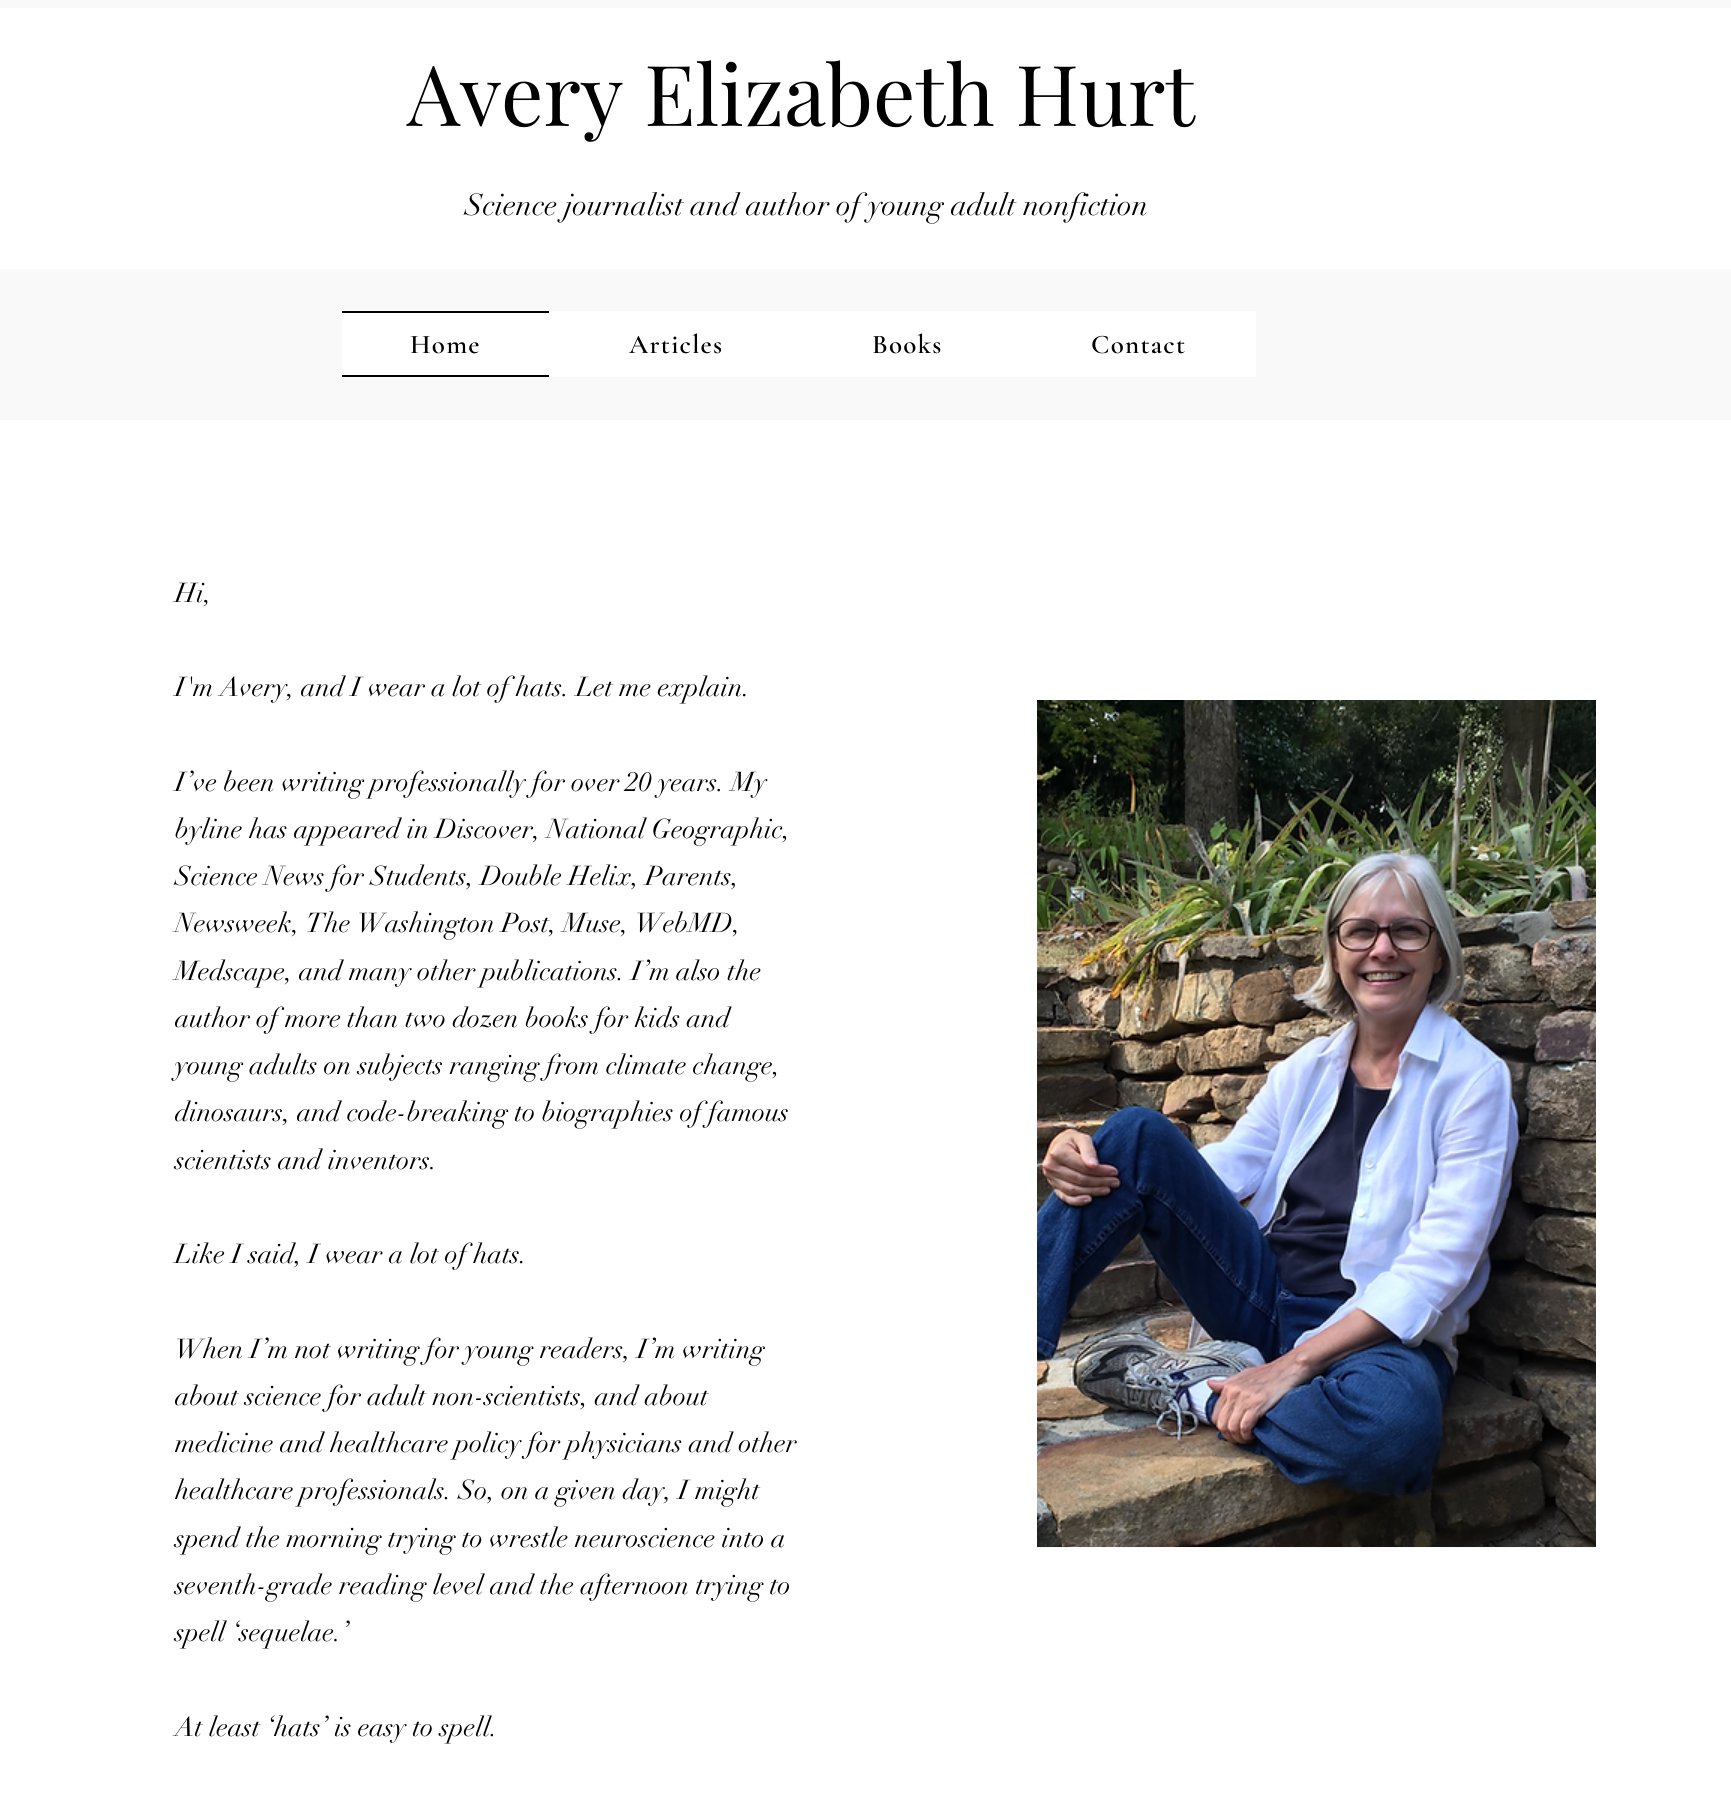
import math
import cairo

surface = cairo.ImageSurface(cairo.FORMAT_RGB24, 1731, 1809)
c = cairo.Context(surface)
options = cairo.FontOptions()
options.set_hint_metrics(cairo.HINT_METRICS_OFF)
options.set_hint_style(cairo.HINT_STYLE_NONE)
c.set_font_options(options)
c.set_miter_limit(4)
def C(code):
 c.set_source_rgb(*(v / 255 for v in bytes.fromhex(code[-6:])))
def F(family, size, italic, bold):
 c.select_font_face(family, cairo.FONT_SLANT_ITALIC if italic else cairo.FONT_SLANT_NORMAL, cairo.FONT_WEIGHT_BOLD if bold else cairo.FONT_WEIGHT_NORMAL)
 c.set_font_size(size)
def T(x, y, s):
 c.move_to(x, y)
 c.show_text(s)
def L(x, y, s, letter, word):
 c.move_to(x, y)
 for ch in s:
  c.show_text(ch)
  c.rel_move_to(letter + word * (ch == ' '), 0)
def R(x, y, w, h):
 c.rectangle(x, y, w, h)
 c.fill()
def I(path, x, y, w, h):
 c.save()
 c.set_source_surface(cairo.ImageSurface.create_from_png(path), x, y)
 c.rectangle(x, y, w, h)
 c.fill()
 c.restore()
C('f9f9f9')
c.paint()
C('ffffff')
R(0,8,1731,261)
F('Playfair Display',84,0,0)
C('000000')
T(407,126,'Avery Elizabeth Hurt')
F('didot',30,0,0)
T(465,215,'Science journalist and author of young adult nonfiction')
C('ffffff')
R(342,311,914,66)
C('000000')
R(342,311,207,2)
R(342,375,207,2)
F('Cormorant Garamond SemiBold',27,0,0)
L(410,353,'Home',1.25,0)
L(629,353,'Articles',1.25,0)
L(872,353,'Books',1.25,0)
L(1091,353,'Contact',1.25,0)
C('ffffff')
R(0,420,1731,1389)
F('didot',27,0,0)
C('000000')
T(175,602,'Hi,')
T(175,696,'I\'m Avery, and I wear a lot of hats. Let me explain.')
T(175,791,'I’ve been writing professionally for over 20 years. My')
T(175,838,'byline has appeared in Discover, National Geographic,')
T(175,885,'Science News for Students, Double Helix, Parents,')
T(175,932,'Newsweek, The Washington Post, Muse, WebMD,')
T(175,980,'Medscape, and many other publications. I’m also the')
T(175,1027,'author of more than two dozen books for kids and')
T(175,1074,'young adults on subjects ranging from climate change,')
T(175,1121,'dinosaurs, and code-breaking to biographies of famous')
T(175,1169,'scientists and inventors.')
T(175,1263,'Like I said, I wear a lot of hats.')
T(175,1358,'When I’m not writing for young readers, I’m writing')
T(175,1405,'about science for adult non-scientists, and about')
T(175,1452,'medicine and healthcare policy for physicians and other')
T(175,1499,'healthcare professionals. So, on a given day, I might')
T(175,1547,'spend the morning trying to wrestle neuroscience into a')
T(175,1594,'seventh-grade reading level and the afternoon trying to')
T(175,1641,'spell ‘sequelae.’')
T(175,1736,'At least ‘hats’ is easy to spell.')
I('1.png',1037,700,559,848)
surface.write_to_png('o.png')
